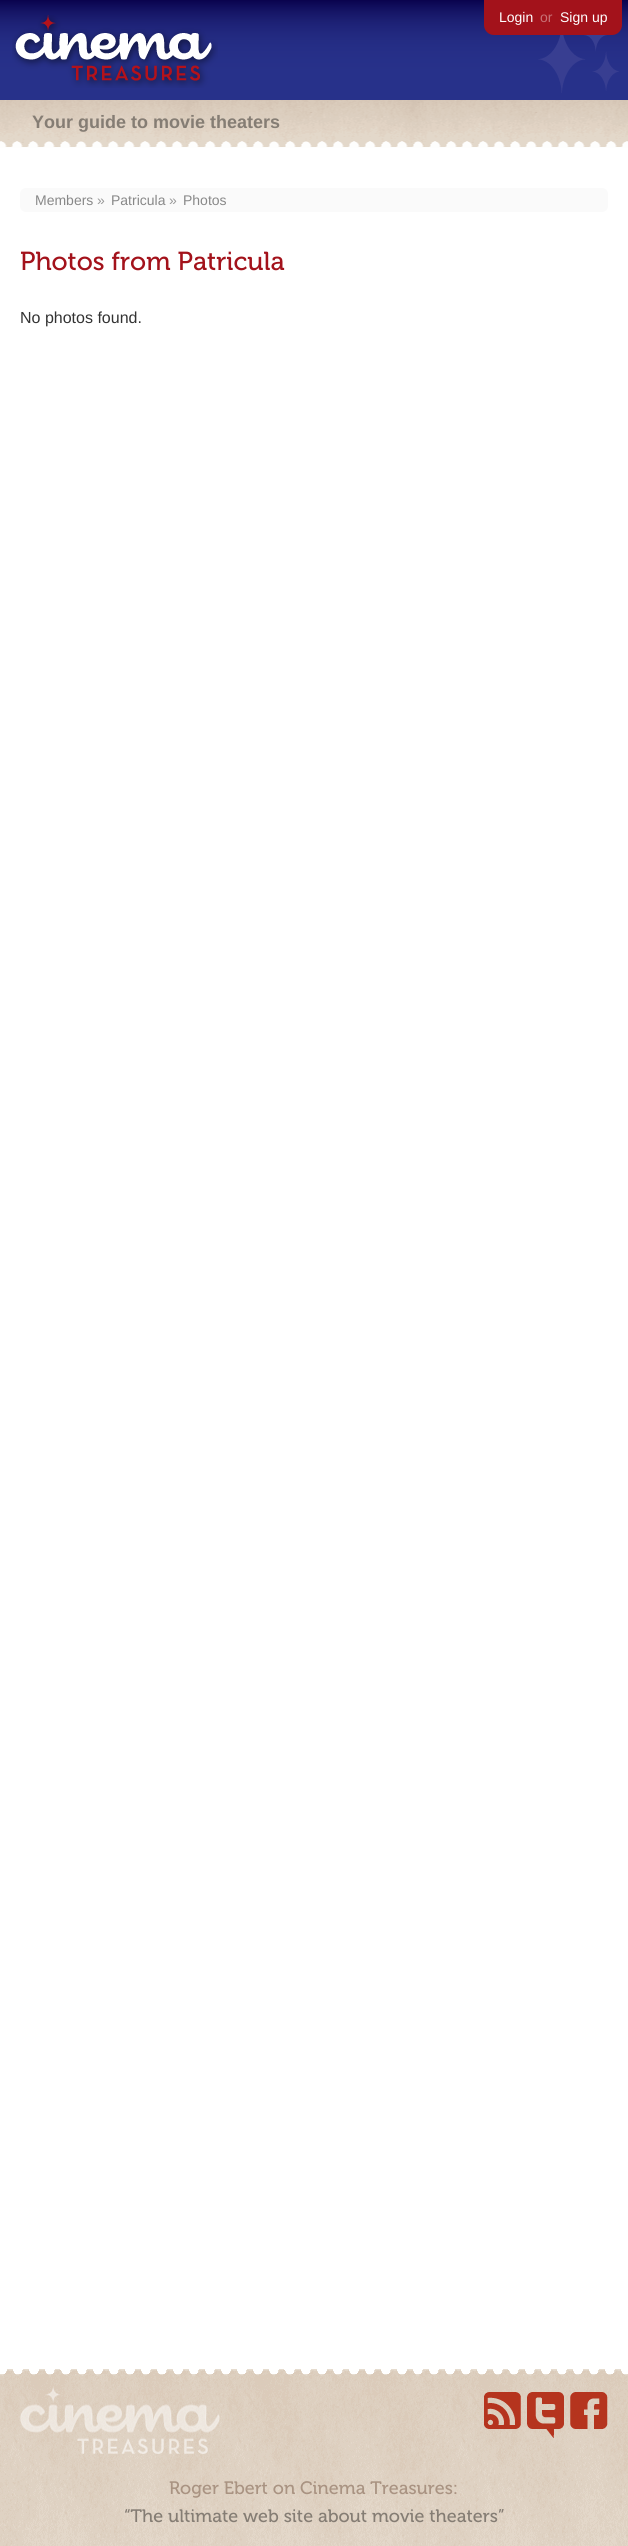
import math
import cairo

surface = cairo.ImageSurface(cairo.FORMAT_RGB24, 628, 2546)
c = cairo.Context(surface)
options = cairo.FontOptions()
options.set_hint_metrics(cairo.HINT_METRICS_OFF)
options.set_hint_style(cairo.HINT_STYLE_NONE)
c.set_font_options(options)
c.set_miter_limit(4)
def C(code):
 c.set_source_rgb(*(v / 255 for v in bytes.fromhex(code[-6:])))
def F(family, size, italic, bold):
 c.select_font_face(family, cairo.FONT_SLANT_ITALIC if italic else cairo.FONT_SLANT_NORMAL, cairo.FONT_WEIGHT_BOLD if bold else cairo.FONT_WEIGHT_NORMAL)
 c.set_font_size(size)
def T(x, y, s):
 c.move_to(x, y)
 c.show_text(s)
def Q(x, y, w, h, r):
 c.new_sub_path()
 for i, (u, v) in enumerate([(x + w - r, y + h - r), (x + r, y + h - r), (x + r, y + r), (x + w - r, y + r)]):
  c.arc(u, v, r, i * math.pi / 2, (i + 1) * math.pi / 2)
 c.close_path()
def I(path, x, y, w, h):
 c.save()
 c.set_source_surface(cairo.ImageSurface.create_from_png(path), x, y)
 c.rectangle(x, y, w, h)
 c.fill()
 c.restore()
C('ffffff')
c.paint()
I('1.png',0,0,628,100)
I('2.png',12,15,206,73)
C('a3121b')
c.new_path()
c.move_to(484,0)
c.line_to(622,0)
c.line_to(622,25)
c.curve_to(622,30.5,617.5,35,612,35)
c.line_to(494,35)
c.curve_to(488.5,35,484,30.5,484,25)
c.close_path()
c.fill()
F('Liberation Sans',14,0,0)
C('ffffff')
T(499,22,'Login')
C('c87176')
T(540,22,'or')
C('ffffff')
T(560,22,'Sign up')
I('3.png',538,35,81,58)
I('4.png',0,100,628,48)
F('Liberation Sans',18,0,1)
C('857d74')
T(32,128,'Your guide to movie theaters')
C('fafafa')
Q(20,188,588,24,6)
c.fill()
F('Liberation Sans',14,0,0)
C('888888')
T(35,205,'Members')
C('999999')
T(97,205,'»')
C('888888')
T(111,205,'Patricula')
C('999999')
T(169,205,'»')
C('888888')
T(183,205,'Photos')
F('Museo',26,0,0)
C('a3121b')
T(20,270,'Photos from Patricula')
F('Liberation Sans',16,0,0)
C('333333')
T(20,323,'No photos found.')
I('5.png',0,2369,628,177)
I('6.png',20,2386,200,68)
I('7.png',484,2392,37,37)
I('8.png',527,2392,37,46)
I('9.png',570,2392,38,37)
F('Museo',18,0,0)
C('a99382')
T(169,2494,'Roger Ebert on Cinema Treasures:')
C('857d74')
T(124,2522,'“The ultimate web site about movie theaters”')
surface.write_to_png('o.png')
